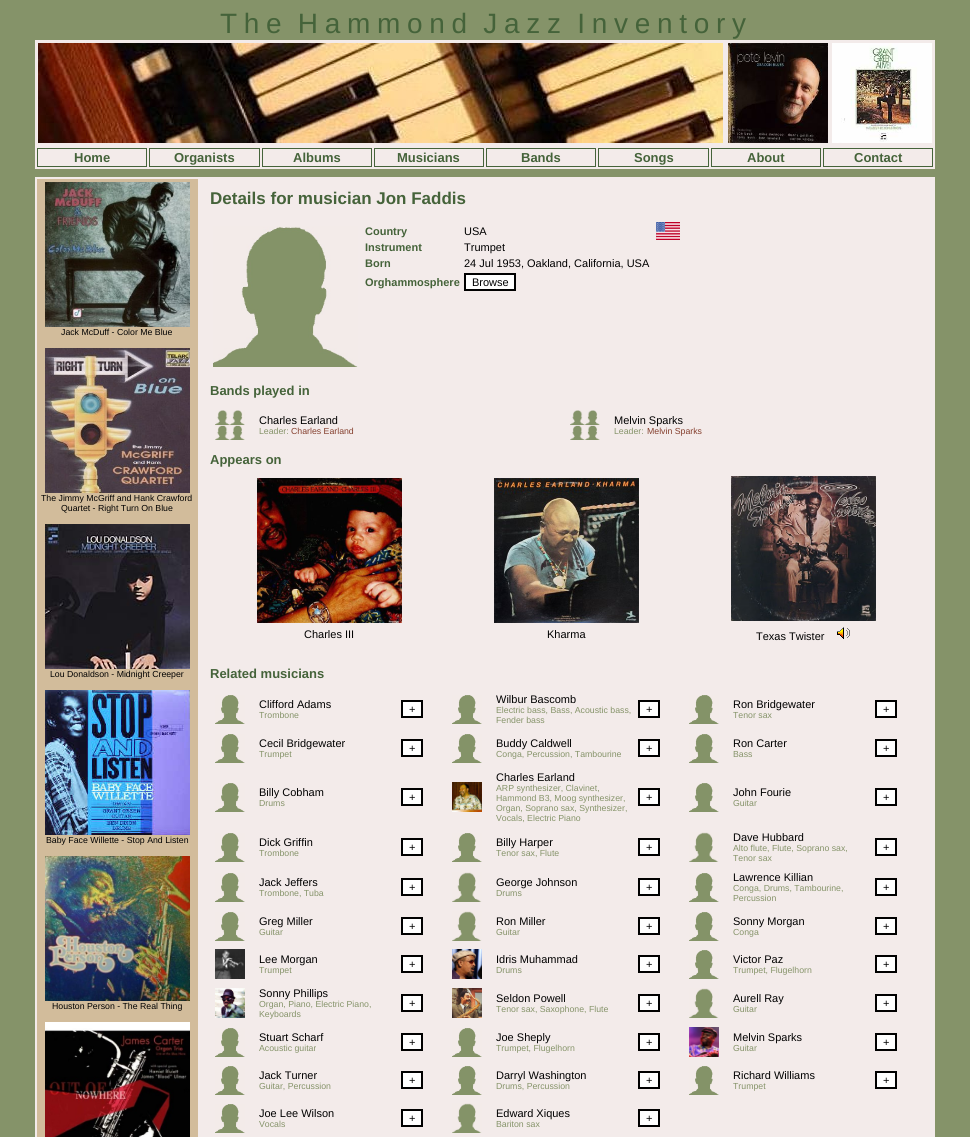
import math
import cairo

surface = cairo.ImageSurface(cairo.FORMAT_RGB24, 970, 1137)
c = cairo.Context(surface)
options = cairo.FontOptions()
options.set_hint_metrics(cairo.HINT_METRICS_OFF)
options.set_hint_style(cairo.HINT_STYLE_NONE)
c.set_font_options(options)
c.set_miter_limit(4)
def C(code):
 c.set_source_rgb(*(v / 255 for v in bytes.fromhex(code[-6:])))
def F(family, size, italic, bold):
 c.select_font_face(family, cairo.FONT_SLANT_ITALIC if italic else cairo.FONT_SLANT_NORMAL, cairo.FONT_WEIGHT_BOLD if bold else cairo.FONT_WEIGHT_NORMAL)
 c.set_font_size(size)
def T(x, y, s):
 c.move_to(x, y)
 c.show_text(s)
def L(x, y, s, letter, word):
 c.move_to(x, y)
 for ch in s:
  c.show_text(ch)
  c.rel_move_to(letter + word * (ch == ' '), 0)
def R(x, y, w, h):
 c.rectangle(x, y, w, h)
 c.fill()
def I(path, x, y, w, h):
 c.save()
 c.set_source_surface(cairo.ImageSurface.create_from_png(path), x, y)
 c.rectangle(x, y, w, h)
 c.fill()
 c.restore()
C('859369')
c.paint()
F('Liberation Sans',28,0,0)
C('45633a')
L(220,33,'The Hammond Jazz Inventory',6.7,-5)
C('f3ebea')
R(35,40,900,129)
I('1.png',38,43,685,100)
I('2.png',728,43,100,100)
I('3.png',832,43,100,100)
c.rectangle(37.5,148.5,109,18)
C('45633a')
c.set_line_width(1)
c.stroke()
F('Liberation Sans',13,0,1)
T(74,162,'Home')
c.rectangle(149.5,148.5,110,18)
c.stroke()
T(174,162,'Organists')
c.rectangle(262.5,148.5,109,18)
c.stroke()
T(293,162,'Albums')
c.rectangle(374.5,148.5,109,18)
c.stroke()
T(397,162,'Musicians')
c.rectangle(486.5,148.5,109,18)
c.stroke()
T(521,162,'Bands')
c.rectangle(598.5,148.5,110,18)
c.stroke()
T(634,162,'Songs')
c.rectangle(711.5,148.5,109,18)
c.stroke()
T(747,162,'About')
c.rectangle(823.5,148.5,109,18)
c.stroke()
T(854,162,'Contact')
C('f3ebea')
R(35,177,900,960)
C('d2bc9b')
R(37,179,161,958)
I('4.png',45,182,145,145)
F('Liberation Sans',8.75,0,0)
C('000000')
T(61,335,'Jack McDuff - Color Me Blue')
I('5.png',45,348,145,145)
T(41,501,'The Jimmy McGriff and Hank Crawford')
T(61,511,'Quartet - Right Turn On Blue')
I('6.png',45,524,145,145)
T(50,677,'Lou Donaldson - Midnight Creeper')
I('7.png',45,690,145,145)
T(46,843,'Baby Face Willette - Stop And Listen')
I('8.png',45,856,145,145)
T(52,1009,'Houston Person - The Real Thing')
I('9.png',45,1022,145,115)
F('Liberation Sans',17,0,1)
C('45633a')
T(210,204,'Details for musician Jon Faddis')
I('10.png',213,226,145,141)
F('Liberation Sans',11,0,1)
T(365,235,'Country')
F('Liberation Sans',11,0,0)
C('000000')
T(464,235,'USA')
F('Liberation Sans',11,0,1)
C('45633a')
T(365,251,'Instrument')
F('Liberation Sans',11,0,0)
C('000000')
T(464,251,'Trumpet')
F('Liberation Sans',11,0,1)
C('45633a')
T(365,267,'Born')
F('Liberation Sans',11,0,0)
C('000000')
T(464,267,'24 Jul 1953, Oakland, California, USA')
F('Liberation Sans',11,0,1)
C('45633a')
T(365,286,'Orghammosphere')
C('ffffff')
c.rectangle(465,274,50,16)
c.fill_preserve()
C('000000')
c.set_line_width(2)
c.stroke()
F('Liberation Sans',11,0,0)
T(472,286,'Browse')
I('11.png',656,222,24,18)
F('Liberation Sans',13,0,1)
C('45633a')
T(210,395,'Bands played in')
I('12.png',215,410,30,30)
F('Liberation Sans',11,0,0)
C('000000')
T(259,424,'Charles Earland')
F('Liberation Sans',8.75,0,0)
C('859369')
T(259,434,'Leader:')
C('843e2d')
T(291,434,'Charles Earland')
I('12.png',570,410,30,30)
F('Liberation Sans',11,0,0)
C('000000')
T(614,424,'Melvin Sparks')
F('Liberation Sans',8.75,0,0)
C('859369')
T(614,434,'Leader:')
C('843e2d')
T(647,434,'Melvin Sparks')
F('Liberation Sans',13,0,1)
C('45633a')
T(210,464,'Appears on')
I('13.png',257,478,145,145)
F('Liberation Sans',11,0,0)
C('000000')
T(304,638,'Charles III')
I('14.png',494,478,145,145)
T(547,638,'Kharma')
I('15.png',731,476,145,145)
T(756,640,'Texas Twister')
I('16.png',837,627,13,12)
F('Liberation Sans',13,0,1)
C('45633a')
T(210,678,'Related musicians')
I('17.png',215,695,30,29)
F('Liberation Sans',11,0,0)
C('000000')
T(259,708,'Clifford Adams')
F('Liberation Sans',8.75,0,0)
C('859369')
T(259,718,'Trombone')
C('ffffff')
c.rectangle(402,701,20,16)
c.fill_preserve()
C('000000')
c.stroke()
F('Liberation Sans',11,0,0)
T(409,713,'+')
I('17.png',452,695,30,29)
T(496,703,'Wilbur Bascomb')
F('Liberation Sans',8.75,0,0)
C('859369')
T(496,713,'Electric bass, Bass, Acoustic bass,')
T(496,723,'Fender bass')
C('ffffff')
c.rectangle(639,701,20,16)
c.fill_preserve()
C('000000')
c.stroke()
F('Liberation Sans',11,0,0)
T(646,713,'+')
I('17.png',689,695,30,29)
T(733,708,'Ron Bridgewater')
F('Liberation Sans',8.75,0,0)
C('859369')
T(733,718,'Tenor sax')
C('ffffff')
c.rectangle(876,701,20,16)
c.fill_preserve()
C('000000')
c.stroke()
F('Liberation Sans',11,0,0)
T(883,713,'+')
I('17.png',215,734,30,29)
T(259,747,'Cecil Bridgewater')
F('Liberation Sans',8.75,0,0)
C('859369')
T(259,757,'Trumpet')
C('ffffff')
c.rectangle(402,740,20,16)
c.fill_preserve()
C('000000')
c.stroke()
F('Liberation Sans',11,0,0)
T(409,752,'+')
I('17.png',452,734,30,29)
T(496,747,'Buddy Caldwell')
F('Liberation Sans',8.75,0,0)
C('859369')
T(496,757,'Conga, Percussion, Tambourine')
C('ffffff')
c.rectangle(639,740,20,16)
c.fill_preserve()
C('000000')
c.stroke()
F('Liberation Sans',11,0,0)
T(646,752,'+')
I('17.png',689,734,30,29)
T(733,747,'Ron Carter')
F('Liberation Sans',8.75,0,0)
C('859369')
T(733,757,'Bass')
C('ffffff')
c.rectangle(876,740,20,16)
c.fill_preserve()
C('000000')
c.stroke()
F('Liberation Sans',11,0,0)
T(883,752,'+')
I('17.png',215,783,30,29)
T(259,796,'Billy Cobham')
F('Liberation Sans',8.75,0,0)
C('859369')
T(259,806,'Drums')
C('ffffff')
c.rectangle(402,789,20,16)
c.fill_preserve()
C('000000')
c.stroke()
F('Liberation Sans',11,0,0)
T(409,801,'+')
I('18.png',452,782,30,30)
T(496,781,'Charles Earland')
F('Liberation Sans',8.75,0,0)
C('859369')
T(496,791,'ARP synthesizer, Clavinet,')
T(496,801,'Hammond B3, Moog synthesizer,')
T(496,811,'Organ, Soprano sax, Synthesizer,')
T(496,821,'Vocals, Electric Piano')
C('ffffff')
c.rectangle(639,789,20,16)
c.fill_preserve()
C('000000')
c.stroke()
F('Liberation Sans',11,0,0)
T(646,801,'+')
I('17.png',689,783,30,29)
T(733,796,'John Fourie')
F('Liberation Sans',8.75,0,0)
C('859369')
T(733,806,'Guitar')
C('ffffff')
c.rectangle(876,789,20,16)
c.fill_preserve()
C('000000')
c.stroke()
F('Liberation Sans',11,0,0)
T(883,801,'+')
I('17.png',215,833,30,29)
T(259,846,'Dick Griffin')
F('Liberation Sans',8.75,0,0)
C('859369')
T(259,856,'Trombone')
C('ffffff')
c.rectangle(402,839,20,16)
c.fill_preserve()
C('000000')
c.stroke()
F('Liberation Sans',11,0,0)
T(409,851,'+')
I('17.png',452,833,30,29)
T(496,846,'Billy Harper')
F('Liberation Sans',8.75,0,0)
C('859369')
T(496,856,'Tenor sax, Flute')
C('ffffff')
c.rectangle(639,839,20,16)
c.fill_preserve()
C('000000')
c.stroke()
F('Liberation Sans',11,0,0)
T(646,851,'+')
I('19.png',689,832,30,30)
T(733,841,'Dave Hubbard')
F('Liberation Sans',8.75,0,0)
C('859369')
T(733,851,'Alto flute, Flute, Soprano sax,')
T(733,861,'Tenor sax')
C('ffffff')
c.rectangle(876,839,20,16)
c.fill_preserve()
C('000000')
c.stroke()
F('Liberation Sans',11,0,0)
T(883,851,'+')
I('17.png',215,873,30,29)
T(259,886,'Jack Jeffers')
F('Liberation Sans',8.75,0,0)
C('859369')
T(259,896,'Trombone, Tuba')
C('ffffff')
c.rectangle(402,879,20,16)
c.fill_preserve()
C('000000')
c.stroke()
F('Liberation Sans',11,0,0)
T(409,891,'+')
I('19.png',452,872,30,30)
T(496,886,'George Johnson')
F('Liberation Sans',8.75,0,0)
C('859369')
T(496,896,'Drums')
C('ffffff')
c.rectangle(639,879,20,16)
c.fill_preserve()
C('000000')
c.stroke()
F('Liberation Sans',11,0,0)
T(646,891,'+')
I('17.png',689,873,30,29)
T(733,881,'Lawrence Killian')
F('Liberation Sans',8.75,0,0)
C('859369')
T(733,891,'Conga, Drums, Tambourine,')
T(733,901,'Percussion')
C('ffffff')
c.rectangle(876,879,20,16)
c.fill_preserve()
C('000000')
c.stroke()
F('Liberation Sans',11,0,0)
T(883,891,'+')
I('17.png',215,912,30,29)
T(259,925,'Greg Miller')
F('Liberation Sans',8.75,0,0)
C('859369')
T(259,935,'Guitar')
C('ffffff')
c.rectangle(402,918,20,16)
c.fill_preserve()
C('000000')
c.stroke()
F('Liberation Sans',11,0,0)
T(409,930,'+')
I('19.png',452,911,30,30)
T(496,925,'Ron Miller')
F('Liberation Sans',8.75,0,0)
C('859369')
T(496,935,'Guitar')
C('ffffff')
c.rectangle(639,918,20,16)
c.fill_preserve()
C('000000')
c.stroke()
F('Liberation Sans',11,0,0)
T(646,930,'+')
I('17.png',689,912,30,29)
T(733,925,'Sonny Morgan')
F('Liberation Sans',8.75,0,0)
C('859369')
T(733,935,'Conga')
C('ffffff')
c.rectangle(876,918,20,16)
c.fill_preserve()
C('000000')
c.stroke()
F('Liberation Sans',11,0,0)
T(883,930,'+')
I('20.png',215,949,30,30)
T(259,963,'Lee Morgan')
F('Liberation Sans',8.75,0,0)
C('859369')
T(259,973,'Trumpet')
C('ffffff')
c.rectangle(402,956,20,16)
c.fill_preserve()
C('000000')
c.stroke()
F('Liberation Sans',11,0,0)
T(409,968,'+')
I('21.png',452,949,30,30)
T(496,963,'Idris Muhammad')
F('Liberation Sans',8.75,0,0)
C('859369')
T(496,973,'Drums')
C('ffffff')
c.rectangle(639,956,20,16)
c.fill_preserve()
C('000000')
c.stroke()
F('Liberation Sans',11,0,0)
T(646,968,'+')
I('17.png',689,950,30,29)
T(733,963,'Victor Paz')
F('Liberation Sans',8.75,0,0)
C('859369')
T(733,973,'Trumpet, Flugelhorn')
C('ffffff')
c.rectangle(876,956,20,16)
c.fill_preserve()
C('000000')
c.stroke()
F('Liberation Sans',11,0,0)
T(883,968,'+')
I('22.png',215,988,30,30)
T(259,997,'Sonny Phillips')
F('Liberation Sans',8.75,0,0)
C('859369')
T(259,1007,'Organ, Piano, Electric Piano,')
T(259,1017,'Keyboards')
C('ffffff')
c.rectangle(402,995,20,16)
c.fill_preserve()
C('000000')
c.stroke()
F('Liberation Sans',11,0,0)
T(409,1007,'+')
I('23.png',452,988,30,30)
T(496,1002,'Seldon Powell')
F('Liberation Sans',8.75,0,0)
C('859369')
T(496,1012,'Tenor sax, Saxophone, Flute')
C('ffffff')
c.rectangle(639,995,20,16)
c.fill_preserve()
C('000000')
c.stroke()
F('Liberation Sans',11,0,0)
T(646,1007,'+')
I('19.png',689,988,30,30)
T(733,1002,'Aurell Ray')
F('Liberation Sans',8.75,0,0)
C('859369')
T(733,1012,'Guitar')
C('ffffff')
c.rectangle(876,995,20,16)
c.fill_preserve()
C('000000')
c.stroke()
F('Liberation Sans',11,0,0)
T(883,1007,'+')
I('17.png',215,1028,30,29)
T(259,1041,'Stuart Scharf')
F('Liberation Sans',8.75,0,0)
C('859369')
T(259,1051,'Acoustic guitar')
C('ffffff')
c.rectangle(402,1034,20,16)
c.fill_preserve()
C('000000')
c.stroke()
F('Liberation Sans',11,0,0)
T(409,1046,'+')
I('17.png',452,1028,30,29)
T(496,1041,'Joe Sheply')
F('Liberation Sans',8.75,0,0)
C('859369')
T(496,1051,'Trumpet, Flugelhorn')
C('ffffff')
c.rectangle(639,1034,20,16)
c.fill_preserve()
C('000000')
c.stroke()
F('Liberation Sans',11,0,0)
T(646,1046,'+')
I('24.png',689,1027,30,30)
T(733,1041,'Melvin Sparks')
F('Liberation Sans',8.75,0,0)
C('859369')
T(733,1051,'Guitar')
C('ffffff')
c.rectangle(876,1034,20,16)
c.fill_preserve()
C('000000')
c.stroke()
F('Liberation Sans',11,0,0)
T(883,1046,'+')
I('17.png',215,1066,30,29)
T(259,1079,'Jack Turner')
F('Liberation Sans',8.75,0,0)
C('859369')
T(259,1089,'Guitar, Percussion')
C('ffffff')
c.rectangle(402,1072,20,16)
c.fill_preserve()
C('000000')
c.stroke()
F('Liberation Sans',11,0,0)
T(409,1084,'+')
I('17.png',452,1066,30,29)
T(496,1079,'Darryl Washington')
F('Liberation Sans',8.75,0,0)
C('859369')
T(496,1089,'Drums, Percussion')
C('ffffff')
c.rectangle(639,1072,20,16)
c.fill_preserve()
C('000000')
c.stroke()
F('Liberation Sans',11,0,0)
T(646,1084,'+')
I('17.png',689,1066,30,29)
T(733,1079,'Richard Williams')
F('Liberation Sans',8.75,0,0)
C('859369')
T(733,1089,'Trumpet')
C('ffffff')
c.rectangle(876,1072,20,16)
c.fill_preserve()
C('000000')
c.stroke()
F('Liberation Sans',11,0,0)
T(883,1084,'+')
I('17.png',215,1104,30,29)
T(259,1117,'Joe Lee Wilson')
F('Liberation Sans',8.75,0,0)
C('859369')
T(259,1127,'Vocals')
C('ffffff')
c.rectangle(402,1110,20,16)
c.fill_preserve()
C('000000')
c.stroke()
F('Liberation Sans',11,0,0)
T(409,1122,'+')
I('19.png',452,1103,30,30)
T(496,1117,'Edward Xiques')
F('Liberation Sans',8.75,0,0)
C('859369')
T(496,1127,'Bariton sax')
C('ffffff')
c.rectangle(639,1110,20,16)
c.fill_preserve()
C('000000')
c.stroke()
F('Liberation Sans',11,0,0)
T(646,1122,'+')
surface.write_to_png('o.png')
